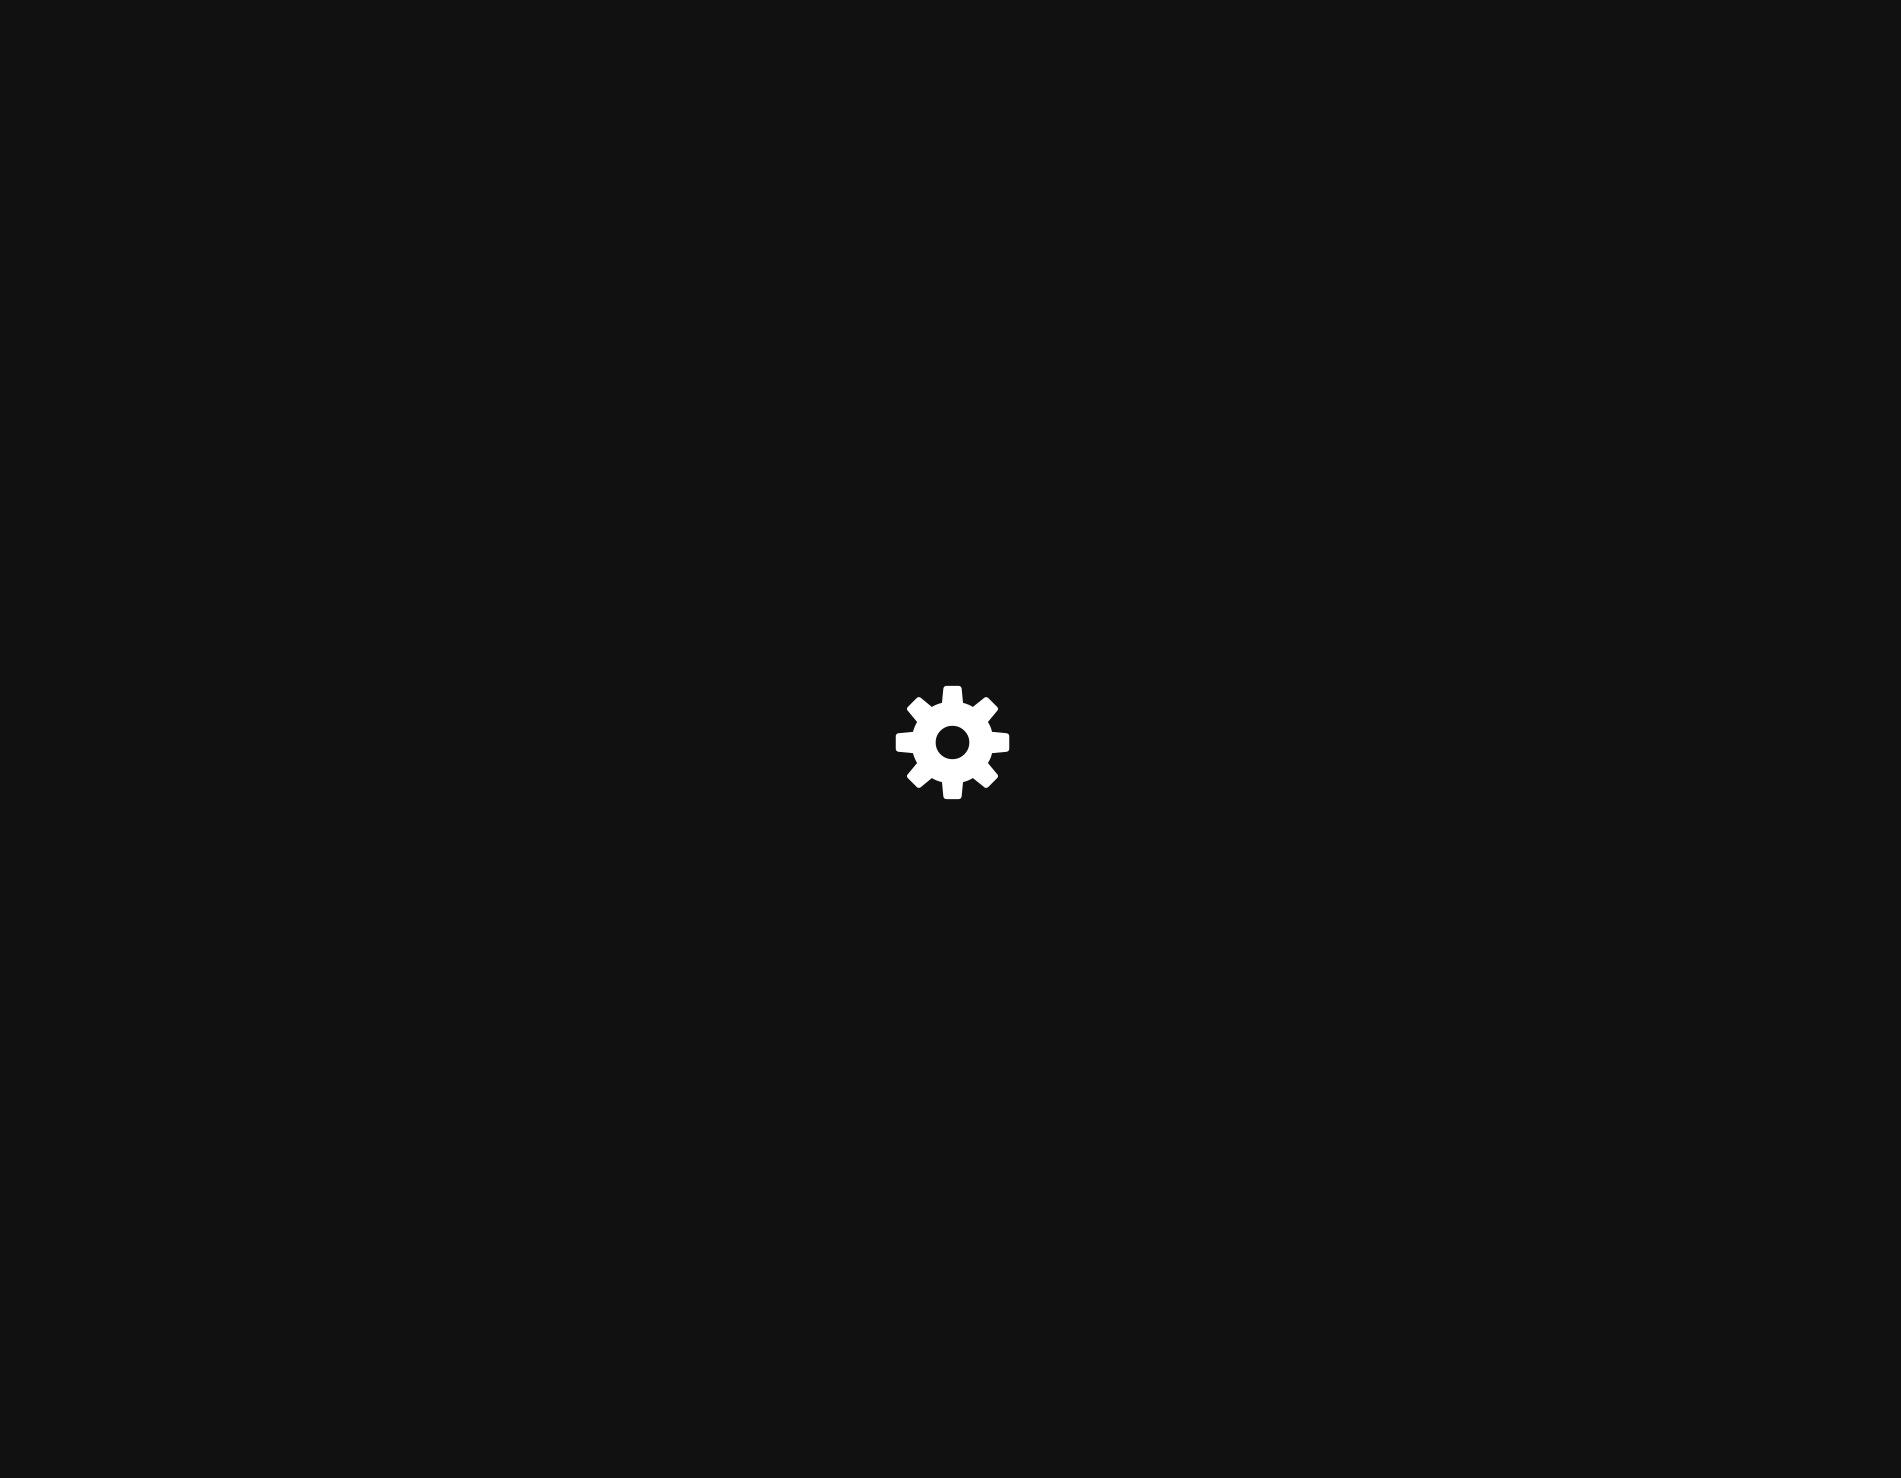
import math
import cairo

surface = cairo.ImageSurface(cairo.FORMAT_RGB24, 1901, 1478)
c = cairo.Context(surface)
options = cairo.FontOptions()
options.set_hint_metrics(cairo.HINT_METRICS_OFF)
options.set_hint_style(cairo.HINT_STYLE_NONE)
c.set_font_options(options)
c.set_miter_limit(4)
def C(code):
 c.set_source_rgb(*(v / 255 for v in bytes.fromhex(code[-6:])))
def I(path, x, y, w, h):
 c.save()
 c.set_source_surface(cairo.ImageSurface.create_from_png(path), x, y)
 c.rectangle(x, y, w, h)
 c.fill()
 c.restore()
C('111111')
c.paint()
I('1.png',895,685,115,115)
surface.write_to_png('o.png')
